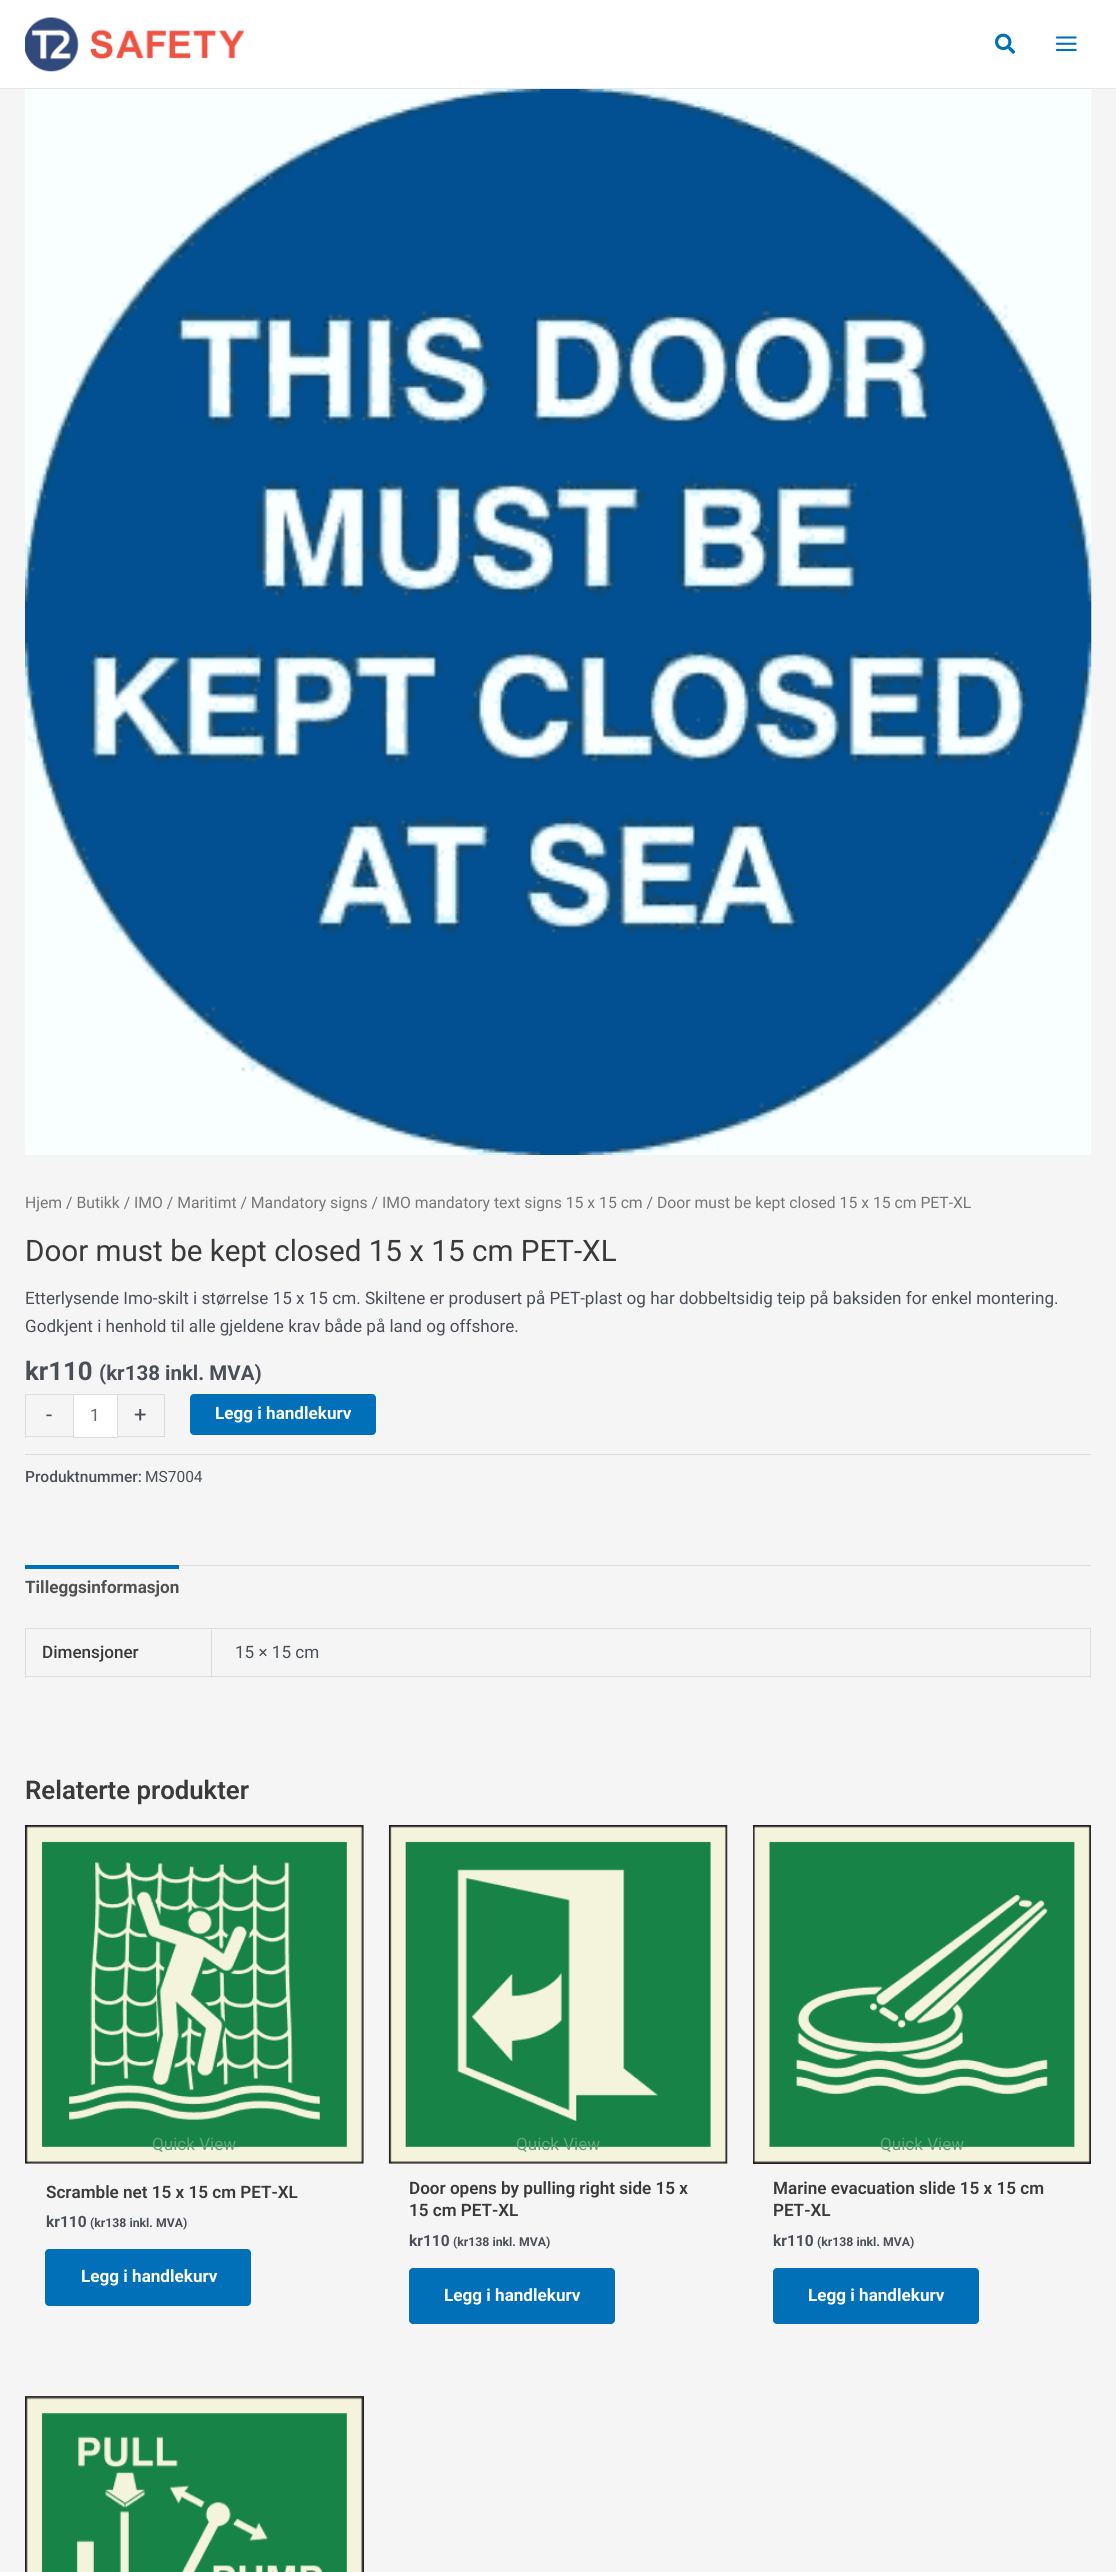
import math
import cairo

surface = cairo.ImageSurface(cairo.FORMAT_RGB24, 1116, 2572)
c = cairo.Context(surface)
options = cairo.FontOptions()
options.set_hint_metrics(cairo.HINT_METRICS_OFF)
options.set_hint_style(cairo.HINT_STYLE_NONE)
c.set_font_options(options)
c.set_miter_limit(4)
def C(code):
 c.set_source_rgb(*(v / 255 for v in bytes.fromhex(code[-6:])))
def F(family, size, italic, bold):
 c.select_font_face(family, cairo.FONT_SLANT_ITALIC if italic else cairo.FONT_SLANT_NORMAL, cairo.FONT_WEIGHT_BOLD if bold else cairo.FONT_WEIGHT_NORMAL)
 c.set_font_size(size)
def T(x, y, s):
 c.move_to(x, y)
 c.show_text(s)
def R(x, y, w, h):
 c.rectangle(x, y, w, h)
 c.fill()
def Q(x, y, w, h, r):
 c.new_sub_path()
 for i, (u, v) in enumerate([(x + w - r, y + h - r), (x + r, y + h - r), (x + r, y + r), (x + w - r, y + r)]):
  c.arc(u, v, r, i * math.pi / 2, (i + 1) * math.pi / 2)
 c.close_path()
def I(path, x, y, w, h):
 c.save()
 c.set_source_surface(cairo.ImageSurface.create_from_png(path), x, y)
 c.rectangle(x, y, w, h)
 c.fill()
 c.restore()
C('f5f5f5')
c.paint()
C('ffffff')
R(0,0,1116,88)
C('e5e5e5')
R(0,88,1116,1)
I('1.png',25,17,219,55)
I('2.png',995,33,20,21)
I('3.png',1055,36,22,16)
I('4.png',25,89,1067,1066)
F('Roboto',15.73,0,0)
C('777777')
T(25,1208,'Hjem / Butikk / IMO / Maritimt / Mandatory signs / IMO mandatory text signs 15 x 15 cm / Door must be kept closed 15 x 15 cm PET-XL')
F('Roboto',29.6,0,0)
C('3a3a3a')
T(25,1261,'Door must be kept closed 15 x 15 cm PET-XL')
F('Roboto',17.1,0,0)
C('4b4f58')
T(25,1304,'Etterlysende Imo-skilt i størrelse 15 x 15 cm. Skiltene er produsert på PET-plast og har dobbeltsidig teip på baksiden for enkel montering.')
T(25,1332,'Godkjent i henhold til alle gjeldene krav både på land og offshore.')
F('Roboto',25.75,0,1)
T(25,1380,'kr110')
F('Roboto',20.5,0,1)
T(99,1380,'(kr138 inkl. MVA)')
C('dddddd')
R(25,1394,48,1)
R(25,1436,48,1)
R(25,1394,1,44)
F('Roboto',22,0,0)
C('4b4f58')
T(46,1422,'-')
C('ffffff')
c.rectangle(73.5,1394.5,44,43)
c.fill_preserve()
C('dddddd')
c.set_line_width(1)
c.stroke()
F('Roboto',17.1,0,0)
C('666666')
T(90,1421,'1')
C('dddddd')
R(118,1394,47,1)
R(164,1394,1,44)
R(118,1436,47,1)
F('Roboto',22,0,0)
C('4b4f58')
T(134,1422,'+')
C('0170b9')
Q(190,1394,186,41,4)
c.fill()
F('Roboto',17.1,0,1)
C('ffffff')
T(215,1419,'Legg i handlekurv')
C('dddddd')
R(25,1454,1066,1)
F('Roboto Medium',15.5,0,0)
C('4b4f58')
T(25,1482,'Produktnummer:')
F('Roboto',15.5,0,0)
T(145,1482,'MS7004')
C('dddddd')
R(179,1565,912,1)
C('0170b9')
R(25,1565,154,4)
F('Roboto',17.1,0,1)
C('515151')
T(25,1593,'Tilleggsinformasjon')
C('dddddd')
R(25,1628,1066,1)
R(211,1629,1,49)
R(25,1676,188,1)
R(25,1629,1,49)
F('Roboto Medium',17.1,0,0)
C('3a3a3a')
T(42,1658,'Dimensjoner')
C('dddddd')
R(1090,1629,1,49)
R(213,1676,878,1)
F('Roboto',17.1,0,0)
C('4b4f58')
T(235,1658,'15 × 15 cm')
F('Roboto SemiBold',25.75,0,0)
C('3a3a3a')
T(25,1799,'Relaterte produkter')
I('5.png',25,1825,339,339)
F('Roboto',17.1,0,0)
C('5da675')
T(152,2150,'Quick View')
F('Roboto SemiBold',17.1,0,0)
C('3a3a3a')
T(46,2198,'Scramble net 15 x 15 cm PET-XL')
F('Roboto',15.5,0,1)
C('4b4f58')
T(46,2227,'kr110')
F('Roboto',12.25,0,1)
T(90,2227,'(kr138 inkl. MVA)')
C('0170b9')
Q(45,2249,206,57,4)
c.fill()
F('Roboto',17.1,0,1)
C('ffffff')
T(81,2282,'Legg i handlekurv')
I('6.png',388,1825,340,339)
F('Roboto',17.1,0,0)
C('5da675')
T(516,2150,'Quick View')
F('Roboto SemiBold',17.1,0,0)
C('3a3a3a')
T(409,2194,'Door opens by pulling right side 15 x')
T(409,2216,'15 cm PET-XL')
F('Roboto',15.5,0,1)
C('4b4f58')
T(409,2246,'kr110')
F('Roboto',12.25,0,1)
T(453,2246,'(kr138 inkl. MVA)')
C('0170b9')
Q(409,2268,206,56,4)
c.fill()
F('Roboto',17.1,0,1)
C('ffffff')
T(444,2301,'Legg i handlekurv')
I('7.png',753,1825,338,339)
F('Roboto',17.1,0,0)
C('5da675')
T(880,2150,'Quick View')
F('Roboto SemiBold',17.1,0,0)
C('3a3a3a')
T(773,2194,'Marine evacuation slide 15 x 15 cm')
T(773,2216,'PET-XL')
F('Roboto',15.5,0,1)
C('4b4f58')
T(773,2246,'kr110')
F('Roboto',12.25,0,1)
T(817,2246,'(kr138 inkl. MVA)')
C('0170b9')
Q(773,2268,206,56,4)
c.fill()
F('Roboto',17.1,0,1)
C('ffffff')
T(808,2301,'Legg i handlekurv')
I('8.png',25,2396,339,176)
surface.write_to_png('o.png')
